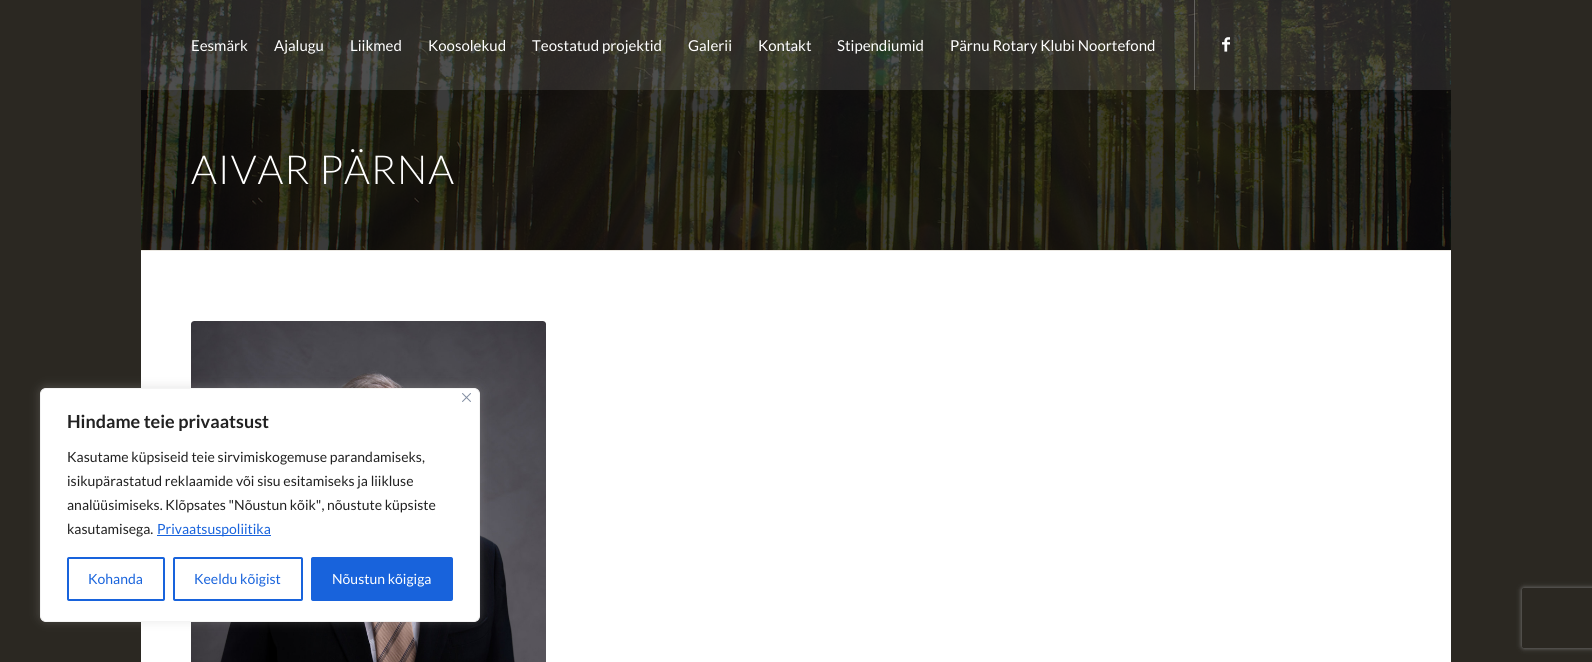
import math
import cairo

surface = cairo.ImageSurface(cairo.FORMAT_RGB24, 1592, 662)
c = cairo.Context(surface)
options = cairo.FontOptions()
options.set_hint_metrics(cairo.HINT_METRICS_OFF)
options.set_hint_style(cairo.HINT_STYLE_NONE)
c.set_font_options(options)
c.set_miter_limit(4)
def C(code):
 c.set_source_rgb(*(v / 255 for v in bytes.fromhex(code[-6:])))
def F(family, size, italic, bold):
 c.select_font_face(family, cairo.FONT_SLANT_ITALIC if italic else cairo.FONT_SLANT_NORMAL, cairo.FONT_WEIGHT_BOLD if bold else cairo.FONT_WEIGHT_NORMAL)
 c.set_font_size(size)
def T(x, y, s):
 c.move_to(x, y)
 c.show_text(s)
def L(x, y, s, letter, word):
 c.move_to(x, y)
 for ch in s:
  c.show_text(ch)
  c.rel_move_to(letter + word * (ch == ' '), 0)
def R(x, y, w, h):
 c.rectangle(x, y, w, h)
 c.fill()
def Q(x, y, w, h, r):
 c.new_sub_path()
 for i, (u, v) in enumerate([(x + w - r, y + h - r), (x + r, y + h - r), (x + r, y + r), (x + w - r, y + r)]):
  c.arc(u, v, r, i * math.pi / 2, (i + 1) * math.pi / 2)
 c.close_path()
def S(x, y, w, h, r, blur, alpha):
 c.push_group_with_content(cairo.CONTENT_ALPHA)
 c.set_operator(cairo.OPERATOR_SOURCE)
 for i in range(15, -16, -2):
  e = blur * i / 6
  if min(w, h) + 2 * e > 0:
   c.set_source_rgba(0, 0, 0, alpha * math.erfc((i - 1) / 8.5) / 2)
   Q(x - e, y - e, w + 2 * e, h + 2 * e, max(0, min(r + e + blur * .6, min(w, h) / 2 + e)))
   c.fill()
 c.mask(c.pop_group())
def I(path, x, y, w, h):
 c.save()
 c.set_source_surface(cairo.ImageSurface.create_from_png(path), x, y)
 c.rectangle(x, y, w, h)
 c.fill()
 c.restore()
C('2b2822')
c.paint()
I('2.png',141,0,1310,250)
c.set_source_rgba(1,1,1,0.1)
R(141,0,1310,90)
c.set_source_rgba(1,1,1,0.25)
R(1194,0,1,90)
F('Lato',15,0,0)
C('ffffff')
T(191,51,'Eesmärk')
T(274,51,'Ajalugu')
T(350,51,'Liikmed')
T(428,51,'Koosolekud')
T(532,51,'Teostatud projektid')
T(688,51,'Galerii')
T(758,51,'Kontakt')
T(837,51,'Stipendiumid')
T(950,51,'Pärnu Rotary Klubi Noortefond')
I('1.png',1222,37,8,15)
R(141,251,1310,411)
F('Lato Light',40,0,0)
L(191,184,'AIVAR PÄRNA',1,0)
C('ebe8e2')
R(141,250,1310,1)
I('3.png',191,321,355,341)
C('acabab')
S(40,387,440,234,6,5,.3)
C('ffffff')
Q(40.5,388.5,439,233,5.5)
c.fill_preserve()
C('f4f4f4')
c.set_line_width(1)
c.stroke()
I('4.png',462,393,9,9)
F('Lato',18,0,1)
C('212121')
T(67,428,'Hindame teie privaatsust')
F('Lato',14,0,0)
T(67,462,'Kasutame küpsiseid teie sirvimiskogemuse parandamiseks,')
T(67,486,'isikupärastatud reklaamide või sisu esitamiseks ja liikluse')
T(67,510,'analüüsimiseks. Klõpsates "Nõustun kõik", nõustute küpsiste')
T(67,534,'kasutamisega.')
C('1863dc')
R(157,535,114,1)
T(157,534,'Privaatsuspoliitika')
Q(68,558,96,42,1)
c.set_line_width(2)
c.stroke()
T(88,584,'Kohanda')
Q(174,558,128,42,1)
c.stroke()
T(194,584,'Keeldu kõigist')
Q(312,558,140,42,1)
c.fill_preserve()
c.stroke()
C('ffffff')
T(332,584,'Nõustun kõigiga')
c.save()
c.set_fill_rule(cairo.FILL_RULE_EVEN_ODD)
c.new_path()
c.move_to(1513,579)
c.line_to(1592,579)
c.line_to(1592,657)
c.line_to(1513,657)
c.close_path()
c.move_to(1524,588)
c.line_to(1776,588)
c.curve_to(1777,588,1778,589,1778,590)
c.line_to(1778,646)
c.curve_to(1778,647,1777,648,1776,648)
c.line_to(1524,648)
c.curve_to(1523,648,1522,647,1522,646)
c.line_to(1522,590)
c.curve_to(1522,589,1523,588,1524,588)
c.close_path()
c.clip()
C('808080')
S(1522,588,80,60,2,2.5,1)
c.restore()
surface.write_to_png('o.png')
